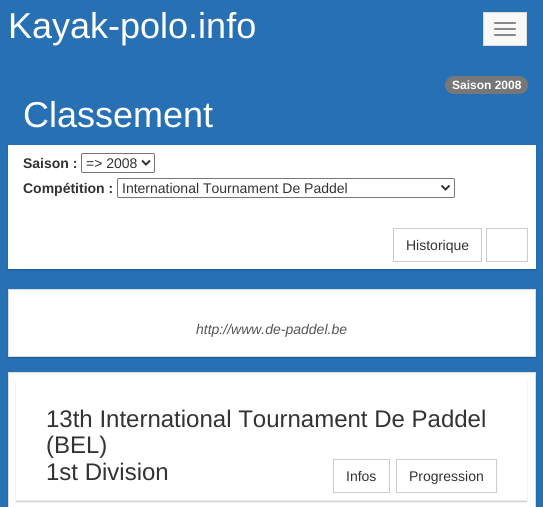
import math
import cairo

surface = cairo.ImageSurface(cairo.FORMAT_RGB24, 543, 507)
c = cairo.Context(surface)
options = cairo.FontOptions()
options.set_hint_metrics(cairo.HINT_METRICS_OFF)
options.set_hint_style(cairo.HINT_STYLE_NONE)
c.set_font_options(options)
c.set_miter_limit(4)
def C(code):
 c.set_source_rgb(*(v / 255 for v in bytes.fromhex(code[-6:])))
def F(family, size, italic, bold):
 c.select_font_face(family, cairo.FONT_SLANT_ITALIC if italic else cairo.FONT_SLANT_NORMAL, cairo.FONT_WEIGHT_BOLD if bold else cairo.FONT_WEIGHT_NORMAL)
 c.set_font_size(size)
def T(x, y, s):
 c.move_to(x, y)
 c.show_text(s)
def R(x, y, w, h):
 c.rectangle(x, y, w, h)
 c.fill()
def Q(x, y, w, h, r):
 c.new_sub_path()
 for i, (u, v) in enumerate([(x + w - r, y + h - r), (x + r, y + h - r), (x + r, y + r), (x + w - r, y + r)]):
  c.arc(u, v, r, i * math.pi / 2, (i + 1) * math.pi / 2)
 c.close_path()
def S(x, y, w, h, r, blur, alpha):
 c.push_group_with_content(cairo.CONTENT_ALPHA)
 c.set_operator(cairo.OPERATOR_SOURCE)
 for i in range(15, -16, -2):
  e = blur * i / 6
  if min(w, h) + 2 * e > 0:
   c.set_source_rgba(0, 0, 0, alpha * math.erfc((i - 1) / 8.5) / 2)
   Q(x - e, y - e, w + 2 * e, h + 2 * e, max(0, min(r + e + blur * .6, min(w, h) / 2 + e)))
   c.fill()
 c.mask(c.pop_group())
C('2670b3')
c.paint()
F('Liberation Sans',36,0,0)
C('ffffff')
T(8,38,'Kayak-polo.info')
C('f8f8f8')
c.rectangle(483.5,12.5,43,33)
c.fill_preserve()
C('dddddd')
c.set_line_width(1)
c.stroke()
C('888888')
Q(494,22,22,2,1)
c.fill()
Q(494,28,22,2,1)
c.fill()
Q(494,34,22,2,1)
c.fill()
C('777777')
Q(445,76,83,18,9)
c.fill()
F('Liberation Sans',12,0,1)
C('ffffff')
T(452,89,'Saison 2008')
F('Liberation Sans',36,0,0)
T(23,127,'Classement')
C('000000')
S(8,146,528,124,0,.5,.2)
C('ffffff')
R(8,145,528,124)
F('Liberation Sans',14,0,1)
C('333333')
T(23,168,'Saison :')
Q(81.5,153.5,73,19,1.5)
C('767676')
c.stroke()
c.new_path()
c.move_to(142,160.5)
c.line_to(146,164.5)
c.line_to(150,160.5)
C('333333')
c.set_line_width(2)
c.stroke()
F('Liberation Sans',14,0,0)
T(86,168,'=> 2008')
F('Liberation Sans',14,0,1)
T(23,193,'Compétition :')
Q(117.5,178.5,337,19,1.5)
C('767676')
c.set_line_width(1)
c.stroke()
c.new_path()
c.move_to(441.5,185.5)
c.line_to(445.5,189.5)
c.line_to(449.5,185.5)
C('333333')
c.set_line_width(2)
c.stroke()
F('Liberation Sans',14,0,0)
T(122,193,'International Tournament De Paddel')
c.rectangle(393.5,228.5,88,33)
C('cccccc')
c.set_line_width(1)
c.stroke()
C('333333')
T(406,250,'Historique')
c.rectangle(486.5,228.5,41,33)
C('cccccc')
c.stroke()
C('000000')
S(8,290,528,68,0,.5,.2)
C('ffffff')
c.rectangle(8.5,289.5,527,67)
c.fill_preserve()
C('dddddd')
c.stroke()
F('Liberation Sans',14,1,0)
C('555555')
T(196,334,'http://www.de-paddel.be')
C('000000')
S(8,373,528,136,0,.5,.2)
C('ffffff')
c.rectangle(8.5,372.5,527,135)
c.fill_preserve()
C('dddddd')
c.stroke()
c.save()
c.set_fill_rule(cairo.FILL_RULE_EVEN_ODD)
c.new_path()
c.move_to(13,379)
c.line_to(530,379)
c.line_to(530,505)
c.line_to(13,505)
c.close_path()
c.move_to(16,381)
c.line_to(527,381)
c.line_to(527,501)
c.line_to(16,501)
c.close_path()
c.clip()
C('000000')
S(16,382,511,120,0,.5,.2)
c.restore()
C('eeeeee')
R(16,500,511,1)
F('Liberation Sans',24,0,0)
C('333333')
T(46,427,'13th International Tournament De Paddel')
T(46,453,'(BEL)')
T(46,480,'1st Division')
c.rectangle(333.5,459.5,56,33)
C('cccccc')
c.stroke()
F('Liberation Sans',14,0,0)
C('333333')
T(346,481,'Infos')
c.rectangle(396.5,459.5,100,33)
C('cccccc')
c.stroke()
C('333333')
T(409,481,'Progression')
surface.write_to_png('o.png')
